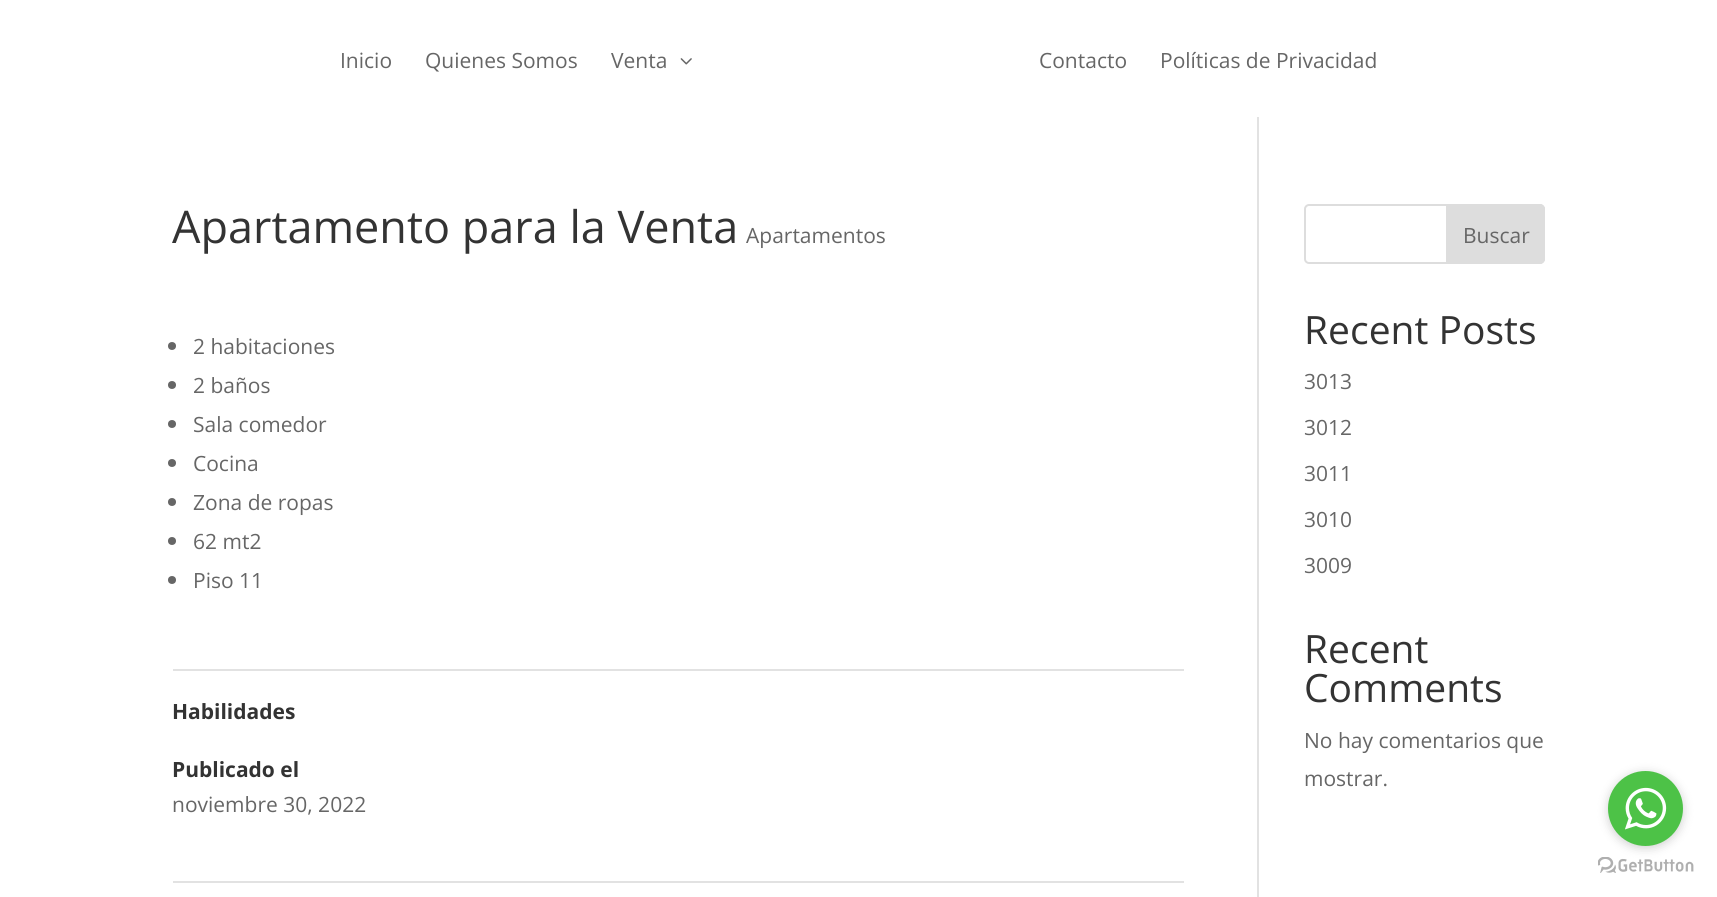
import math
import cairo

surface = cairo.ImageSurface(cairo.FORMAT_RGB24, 1717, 897)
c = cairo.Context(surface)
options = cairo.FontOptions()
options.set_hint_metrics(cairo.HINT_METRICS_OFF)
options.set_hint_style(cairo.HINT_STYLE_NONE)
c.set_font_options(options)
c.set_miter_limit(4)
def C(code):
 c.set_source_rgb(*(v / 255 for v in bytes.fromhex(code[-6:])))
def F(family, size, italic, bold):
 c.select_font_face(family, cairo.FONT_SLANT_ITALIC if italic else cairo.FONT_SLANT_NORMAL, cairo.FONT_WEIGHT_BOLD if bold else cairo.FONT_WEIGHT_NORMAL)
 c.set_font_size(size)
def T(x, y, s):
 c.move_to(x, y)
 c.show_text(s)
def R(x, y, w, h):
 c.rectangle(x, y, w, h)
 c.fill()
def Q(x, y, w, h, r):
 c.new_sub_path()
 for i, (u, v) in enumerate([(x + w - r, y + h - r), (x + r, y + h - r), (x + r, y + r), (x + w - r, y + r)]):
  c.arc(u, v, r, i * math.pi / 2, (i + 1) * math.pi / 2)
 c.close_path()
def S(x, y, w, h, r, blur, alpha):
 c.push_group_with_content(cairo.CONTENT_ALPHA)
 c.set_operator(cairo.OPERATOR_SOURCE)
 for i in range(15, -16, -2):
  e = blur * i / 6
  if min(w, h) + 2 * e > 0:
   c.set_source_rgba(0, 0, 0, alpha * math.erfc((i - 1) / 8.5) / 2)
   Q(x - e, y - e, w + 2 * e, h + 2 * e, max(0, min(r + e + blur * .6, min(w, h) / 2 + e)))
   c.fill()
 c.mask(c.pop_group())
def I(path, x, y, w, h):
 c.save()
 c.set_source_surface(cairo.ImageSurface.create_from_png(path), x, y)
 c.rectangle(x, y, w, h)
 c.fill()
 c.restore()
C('ffffff')
c.paint()
F('Open Sans',21,0,0)
C('666666')
T(340,68,'Inicio')
T(425,68,'Quienes Somos')
T(611,68,'Venta')
I('1.png',680,58,12,7)
T(1039,68,'Contacto')
T(1160,68,'Políticas de Privacidad')
C('e2e2e2')
R(1257,117,2,780)
F('Open Sans',45,0,0)
C('333333')
T(172,243,'Apartamento para la Venta')
F('Open Sans',21,0,0)
C('666666')
T(746,243,'Apartamentos')
c.new_path()
c.arc(172,346,4,0,2 * math.pi)
c.fill()
T(193,354,'2 habitaciones')
c.new_path()
c.arc(172,385,4,0,2 * math.pi)
c.fill()
T(193,393,'2 baños')
c.new_path()
c.arc(172,424,4,0,2 * math.pi)
c.fill()
T(193,432,'Sala comedor')
c.new_path()
c.arc(172,463,4,0,2 * math.pi)
c.fill()
T(193,471,'Cocina')
c.new_path()
c.arc(172,502,4,0,2 * math.pi)
c.fill()
T(193,510,'Zona de ropas')
c.new_path()
c.arc(172,541,4,0,2 * math.pi)
c.fill()
T(193,549,'62 mt2')
c.new_path()
c.arc(172,580,4,0,2 * math.pi)
c.fill()
T(193,588,'Piso 11')
C('e2e2e2')
R(173,669,1011,2)
R(173,881,1011,2)
F('Open Sans',21,0,1)
C('333333')
T(172,719,'Habilidades')
T(172,777,'Publicado el')
F('Open Sans',21,0,0)
C('666666')
T(172,812,'noviembre 30, 2022')
Q(1305,205,239,58,4)
C('dddddd')
c.stroke()
c.new_path()
c.move_to(1447,205)
c.line_to(1540,205)
c.curve_to(1542,205,1544,207,1544,209)
c.line_to(1544,259)
c.curve_to(1544,261,1542,263,1540,263)
c.line_to(1447,263)
c.close_path()
c.fill_preserve()
c.stroke()
C('666666')
T(1463,243,'Buscar')
F('Open Sans',39,0,0)
C('333333')
T(1304,344,'Recent Posts')
F('Open Sans',21,0,0)
C('666666')
T(1304,389,'3013')
T(1304,435,'3012')
T(1304,481,'3011')
T(1304,527,'3010')
T(1304,573,'3009')
F('Open Sans',39,0,0)
C('333333')
T(1304,663,'Recent')
T(1304,702,'Comments')
F('Open Sans',21,0,0)
C('666666')
T(1304,748,'No hay comentarios que')
T(1304,786,'mostrar.')
I('3.png',1598,857,96,16)
C('888888')
S(1608,773,75,75,37.5,5,.4)
C('4dc247')
c.arc(1645.5,808.5,37.5,0,2 * math.pi)
c.fill()
I('2.png',1625,787,42,43)
surface.write_to_png('o.png')
